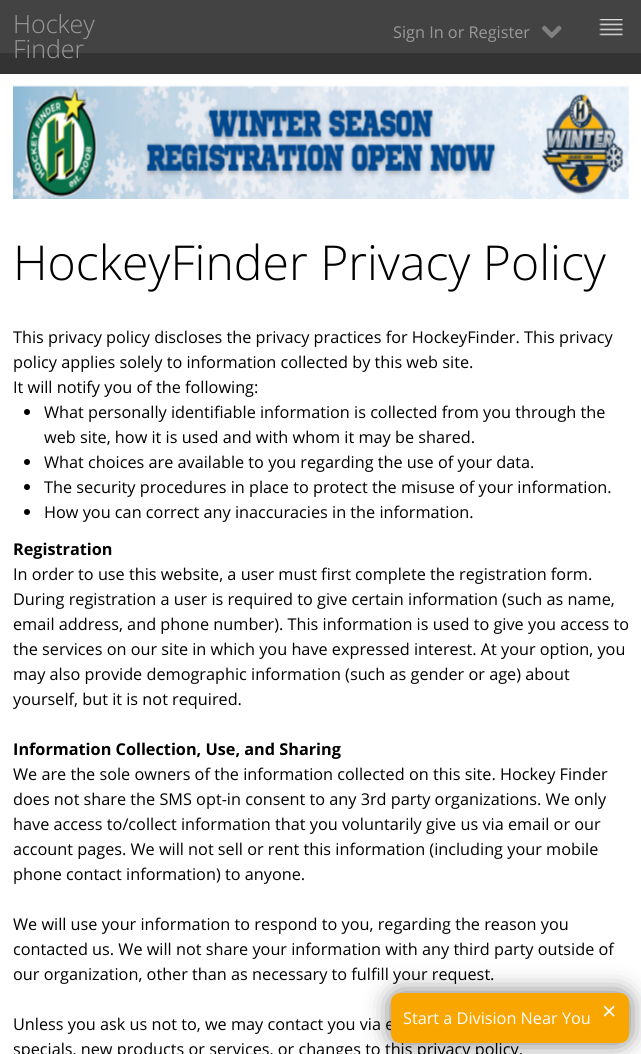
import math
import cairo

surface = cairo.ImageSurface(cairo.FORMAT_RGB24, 641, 1054)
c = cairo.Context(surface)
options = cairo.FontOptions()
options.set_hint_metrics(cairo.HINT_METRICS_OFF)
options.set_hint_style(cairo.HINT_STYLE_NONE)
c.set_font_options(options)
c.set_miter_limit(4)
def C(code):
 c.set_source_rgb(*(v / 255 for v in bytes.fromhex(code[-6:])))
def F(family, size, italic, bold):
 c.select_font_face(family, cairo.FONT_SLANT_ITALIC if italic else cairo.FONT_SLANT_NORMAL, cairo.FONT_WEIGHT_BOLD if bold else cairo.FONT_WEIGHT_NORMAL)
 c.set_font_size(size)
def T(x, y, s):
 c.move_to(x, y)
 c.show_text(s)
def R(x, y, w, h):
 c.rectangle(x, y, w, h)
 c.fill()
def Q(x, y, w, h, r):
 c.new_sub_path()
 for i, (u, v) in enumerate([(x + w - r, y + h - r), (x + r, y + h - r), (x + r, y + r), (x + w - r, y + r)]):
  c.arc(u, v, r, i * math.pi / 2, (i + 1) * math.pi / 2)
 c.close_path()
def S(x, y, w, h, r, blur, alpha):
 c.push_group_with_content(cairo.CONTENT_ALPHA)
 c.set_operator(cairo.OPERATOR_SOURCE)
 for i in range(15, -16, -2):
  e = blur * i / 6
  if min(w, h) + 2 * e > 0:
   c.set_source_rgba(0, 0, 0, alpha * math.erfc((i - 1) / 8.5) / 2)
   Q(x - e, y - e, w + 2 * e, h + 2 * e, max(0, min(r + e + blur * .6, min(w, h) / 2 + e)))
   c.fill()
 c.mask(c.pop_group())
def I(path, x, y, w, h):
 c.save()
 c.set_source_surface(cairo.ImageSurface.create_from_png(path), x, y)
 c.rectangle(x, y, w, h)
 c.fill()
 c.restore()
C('333333')
c.paint()
C('434343')
R(0,0,641,53)
F('Open Sans Light',25,0,0)
C('999999')
T(13,33,'Hockey')
T(13,58,'Finder')
F('Open Sans',16.25,0,0)
T(393,38,'Sign In or Register')
I('1.png',542,25,20,13)
I('2.png',599,19,24,17)
C('ffffff')
R(0,74,641,980)
I('3.png',13,85,617,114)
F('Open Sans Light',48.1,0,0)
C('000000')
T(13,280,'HockeyFinder Privacy Policy')
F('Open Sans',16.25,0,0)
T(13,343,'This privacy policy discloses the privacy practices for HockeyFinder. This privacy')
T(13,368,'policy applies solely to information collected by this web site.')
T(13,393,'It will notify you of the following:')
c.new_path()
c.arc(27,412,3,0,2 * math.pi)
c.fill()
T(44,418,'What personally identifiable information is collected from you through the')
T(44,443,'web site, how it is used and with whom it may be shared.')
c.new_path()
c.arc(27,462,3,0,2 * math.pi)
c.fill()
T(44,468,'What choices are available to you regarding the use of your data.')
c.new_path()
c.arc(27,487,3,0,2 * math.pi)
c.fill()
T(44,493,'The security procedures in place to protect the misuse of your information.')
c.new_path()
c.arc(27,512,3,0,2 * math.pi)
c.fill()
T(44,518,'How you can correct any inaccuracies in the information.')
F('Open Sans',16.25,0,1)
T(13,555,'Registration')
F('Open Sans',16.25,0,0)
T(13,580,'In order to use this website, a user must first complete the registration form.')
T(13,605,'During registration a user is required to give certain information (such as name,')
T(13,630,'email address, and phone number). This information is used to give you access to')
T(13,655,'the services on our site in which you have expressed interest. At your option, you')
T(13,680,'may also provide demographic information (such as gender or age) about')
T(13,705,'yourself, but it is not required.')
F('Open Sans',16.25,0,1)
T(13,755,'Information Collection, Use, and Sharing')
F('Open Sans',16.25,0,0)
T(13,780,'We are the sole owners of the information collected on this site. Hockey Finder')
T(13,805,'does not share the SMS opt-in consent to any 3rd party organizations. We only')
T(13,830,'have access to/collect information that you voluntarily give us via email or our')
T(13,855,'account pages. We will not sell or rent this information (including your mobile')
T(13,880,'phone contact information) to anyone.')
T(13,930,'We will use your information to respond to you, regarding the reason you')
T(13,955,'contacted us. We will not share your information with any third party outside of')
T(13,980,'our organization, other than as necessary to fulfill your request.')
T(13,1030,'Unless you ask us not to, we may contact you via e')
T(13,1055,'specials, new products or services, or changes to this privacy policy.')
C('000000')
S(391,993,238,50,9,12.5,.54)
C('faa600')
Q(391,993,238,50,9)
c.fill()
C('ffffff')
T(403,1024,'Start a Division Near You')
F('Open Sans',25,0,0)
T(602,1020,'×')
surface.write_to_png('o.png')
